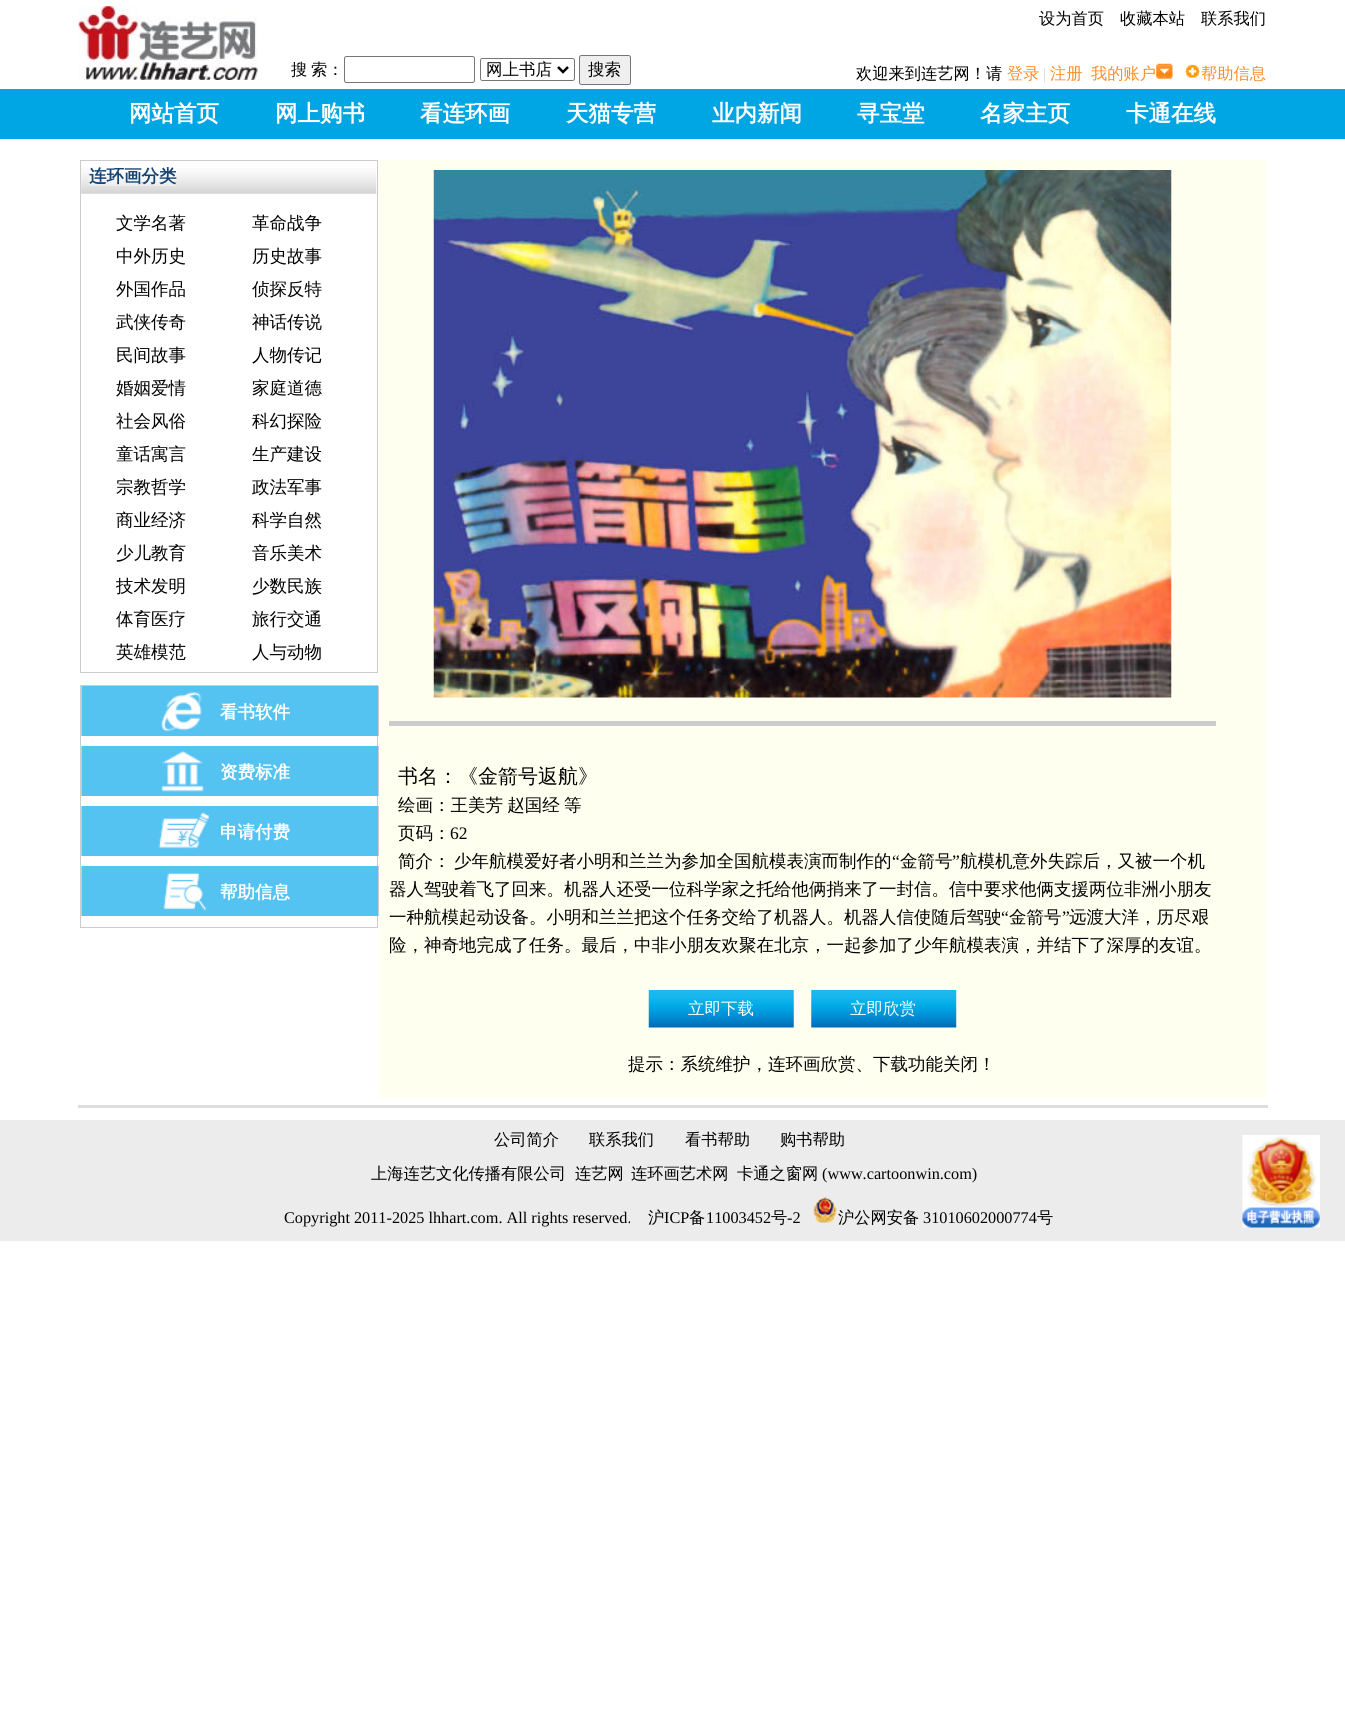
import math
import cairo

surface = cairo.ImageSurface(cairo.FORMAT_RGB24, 1345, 1720)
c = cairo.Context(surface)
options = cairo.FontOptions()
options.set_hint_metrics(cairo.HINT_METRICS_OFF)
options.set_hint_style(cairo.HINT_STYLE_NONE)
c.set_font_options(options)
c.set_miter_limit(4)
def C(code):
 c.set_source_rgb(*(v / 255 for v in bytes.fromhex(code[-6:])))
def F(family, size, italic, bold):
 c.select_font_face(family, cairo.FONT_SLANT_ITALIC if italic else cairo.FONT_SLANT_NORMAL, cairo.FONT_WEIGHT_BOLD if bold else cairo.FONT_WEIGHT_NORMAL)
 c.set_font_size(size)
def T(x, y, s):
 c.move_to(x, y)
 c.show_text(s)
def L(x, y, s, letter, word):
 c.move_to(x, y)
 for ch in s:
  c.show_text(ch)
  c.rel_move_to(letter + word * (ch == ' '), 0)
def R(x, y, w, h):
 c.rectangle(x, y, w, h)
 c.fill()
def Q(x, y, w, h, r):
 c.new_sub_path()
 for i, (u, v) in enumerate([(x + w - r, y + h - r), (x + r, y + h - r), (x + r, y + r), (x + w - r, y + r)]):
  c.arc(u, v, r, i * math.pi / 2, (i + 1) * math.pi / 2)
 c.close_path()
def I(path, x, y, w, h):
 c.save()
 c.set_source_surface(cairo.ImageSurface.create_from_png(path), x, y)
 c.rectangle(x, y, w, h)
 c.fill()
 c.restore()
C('ffffff')
c.paint()
I('1.png',78,6,180,74)
F('WenQuanYi Zen Hei Medium',16.25,0,0)
C('000000')
T(1039,24,'设为首页')
T(1120,24,'收藏本站')
T(1201,24,'联系我们')
L(291,75,'搜 索：',0,-1)
Q(344.5,56.5,130,26,2)
C('767676')
c.set_line_width(1)
c.stroke()
Q(480.5,58.5,94,22,2)
c.stroke()
c.new_path()
c.move_to(558,67)
c.line_to(563,72)
c.line_to(568,67)
C('000000')
c.set_line_width(2.5)
c.stroke()
F('WenQuanYi Zen Hei Medium',16.5,0,0)
T(486,75,'网上书店')
C('efefef')
Q(579.5,55.5,51,29,2)
c.fill_preserve()
C('767676')
c.set_line_width(1)
c.stroke()
C('000000')
T(588,75,'搜索')
F('WenQuanYi Zen Hei Medium',16.25,0,0)
T(856,79,'欢迎来到连艺网！请')
C('ff8d23')
T(1007,79,'登录')
F('Liberation Serif',16.25,0,0)
C('d8d8d8')
T(1043,79,'|')
F('WenQuanYi Zen Hei Medium',16.25,0,0)
C('ff8d23')
T(1050,79,'注册')
T(1091,79,'我的账户')
I('2.png',1156,63,17,16)
I('3.png',1185,64,16,14)
T(1201,79,'帮助信息')
C('00a5e3')
R(0,89,1345,50)
F('WenQuanYi Zen Hei',22.5,0,1)
C('ffffff')
T(129,121,'网站首页')
T(275,121,'网上购书')
T(420,121,'看连环画')
T(566,121,'天猫专营')
T(712,121,'业内新闻')
T(857,121,'寻宝堂')
T(980,121,'名家主页')
T(1126,121,'卡通在线')
c.rectangle(80.5,160.5,297,512)
C('cccccc')
c.stroke()
I('4.png',81,168,296,26)
I('5.png',89,168,87,18)
F('WenQuanYi Zen Hei',17.5,0,1)
C('164474')
T(89,182,'连环画分类')
F('WenQuanYi Zen Hei Medium',17.5,0,0)
C('000000')
T(116,229,'文学名著')
T(252,229,'革命战争')
T(116,262,'中外历史')
T(252,262,'历史故事')
T(116,295,'外国作品')
T(252,295,'侦探反特')
T(116,328,'武侠传奇')
T(252,328,'神话传说')
T(116,361,'民间故事')
T(252,361,'人物传记')
T(116,394,'婚姻爱情')
T(252,394,'家庭道德')
T(116,427,'社会风俗')
T(252,427,'科幻探险')
T(116,460,'童话寓言')
T(252,460,'生产建设')
T(116,493,'宗教哲学')
T(252,493,'政法军事')
T(116,526,'商业经济')
T(252,526,'科学自然')
T(116,559,'少儿教育')
T(252,559,'音乐美术')
T(116,592,'技术发明')
T(252,592,'少数民族')
T(116,625,'体育医疗')
T(252,625,'旅行交通')
T(116,658,'英雄模范')
T(252,658,'人与动物')
c.rectangle(80.5,685.5,297,242)
C('cccccc')
c.stroke()
C('54c3f1')
R(82,686,296,50)
C('cccccc')
R(378,686,1,50)
R(81,686,1,50)
I('6.png',161,692,41,40)
F('WenQuanYi Zen Hei',17.5,0,1)
C('ffffff')
T(220,718,'看书软件')
C('54c3f1')
R(82,746,296,50)
C('cccccc')
R(378,746,1,50)
R(81,746,1,50)
I('7.png',161,751,43,41)
C('ffffff')
T(220,778,'资费标准')
C('54c3f1')
R(82,806,296,50)
C('cccccc')
R(378,806,1,50)
R(81,806,1,50)
I('8.png',158,812,52,37)
C('ffffff')
T(220,838,'申请付费')
C('54c3f1')
R(82,866,296,50)
C('cccccc')
R(378,866,1,50)
R(81,866,1,50)
I('9.png',163,872,44,39)
C('ffffff')
T(220,898,'帮助信息')
C('fffff0')
R(379,160,887,938)
I('10.png',433,170,739,528)
C('cccccc')
R(389,721,827,5)
F('WenQuanYi Zen Hei Medium',20,0,0)
C('000000')
T(398,783,'书名：《金箭号返航》')
F('WenQuanYi Zen Hei Medium',17.5,0,0)
L(398,811,'绘画：王美芳 赵国经 等',0,-1)
T(398,839,'页码：')
F('Liberation Serif',17.5,0,0)
T(450,839,'62')
F('WenQuanYi Zen Hei Medium',17.5,0,0)
T(398,867,'简介：')
T(454,867,'少年航模爱好者小明和兰兰为参加全国航模表演而制作的')
F('Liberation Serif',17.5,0,0)
T(892,867,'“')
F('WenQuanYi Zen Hei Medium',17.5,0,0)
T(900,867,'金箭号')
F('Liberation Serif',17.5,0,0)
T(952,867,'”')
F('WenQuanYi Zen Hei Medium',17.5,0,0)
T(960,867,'航模机意外失踪后，又被一个机')
T(389,895,'器人驾驶着飞了回来。机器人还受一位科学家之托给他俩捎来了一封信。信中要求他俩支援两位非洲小朋友')
T(389,923,'一种航模起动设备。小明和兰兰把这个任务交给了机器人。机器人信使随后驾驶')
F('Liberation Serif',17.5,0,0)
T(1001,923,'“')
F('WenQuanYi Zen Hei Medium',17.5,0,0)
T(1009,923,'金箭号')
F('Liberation Serif',17.5,0,0)
T(1062,923,'”')
F('WenQuanYi Zen Hei Medium',17.5,0,0)
T(1069,923,'远渡大洋，历尽艰')
T(389,951,'险，神奇地完成了任务。最后，中非小朋友欢聚在北京，一起参加了少年航模表演，并结下了深厚的友谊。')
I('11.png',648,990,146,38)
F('WenQuanYi Zen Hei Medium',16.5,0,0)
C('ffffff')
T(688,1014,'立即下载')
I('12.png',811,990,146,38)
T(850,1014,'立即欣赏')
F('WenQuanYi Zen Hei Medium',17.5,0,0)
C('000000')
T(628,1070,'提示：系统维护，连环画欣赏、下载功能关闭！')
C('dddddd')
R(78,1105,1190,3)
C('ececec')
R(0,1120,1345,121)
F('WenQuanYi Zen Hei Medium',16.25,0,0)
C('000000')
T(494,1145,'公司简介')
T(589,1145,'联系我们')
T(685,1145,'看书帮助')
T(780,1145,'购书帮助')
I('13.png',1242,1135,78,93)
T(371,1179,'上海连艺文化传播有限公司')
T(575,1179,'连艺网')
T(631,1179,'连环画艺术网')
T(737,1179,'卡通之窗网')
F('Liberation Serif',16.25,0,0)
T(822,1179,'(www.cartoonwin.com)')
T(284,1223,'Copyright 2011-2025 lhhart.com. All rights reserved.')
F('WenQuanYi Zen Hei Medium',16.25,0,0)
T(648,1223,'沪')
F('Liberation Serif',16.25,0,0)
T(664,1223,'ICP')
F('WenQuanYi Zen Hei Medium',16.25,0,0)
T(689,1223,'备')
F('Liberation Serif',16.25,0,0)
T(706,1223,'11003452')
F('WenQuanYi Zen Hei Medium',16.25,0,0)
T(771,1223,'号')
F('Liberation Serif',16.25,0,0)
T(787,1223,'-2')
I('14.png',813,1197,24,26)
F('WenQuanYi Zen Hei Medium',16.25,0,0)
T(838,1223,'沪公网安备')
F('Liberation Serif',16.25,0,0)
T(923,1223,'31010602000774')
F('WenQuanYi Zen Hei Medium',16.25,0,0)
T(1037,1223,'号')
surface.write_to_png('o.png')
